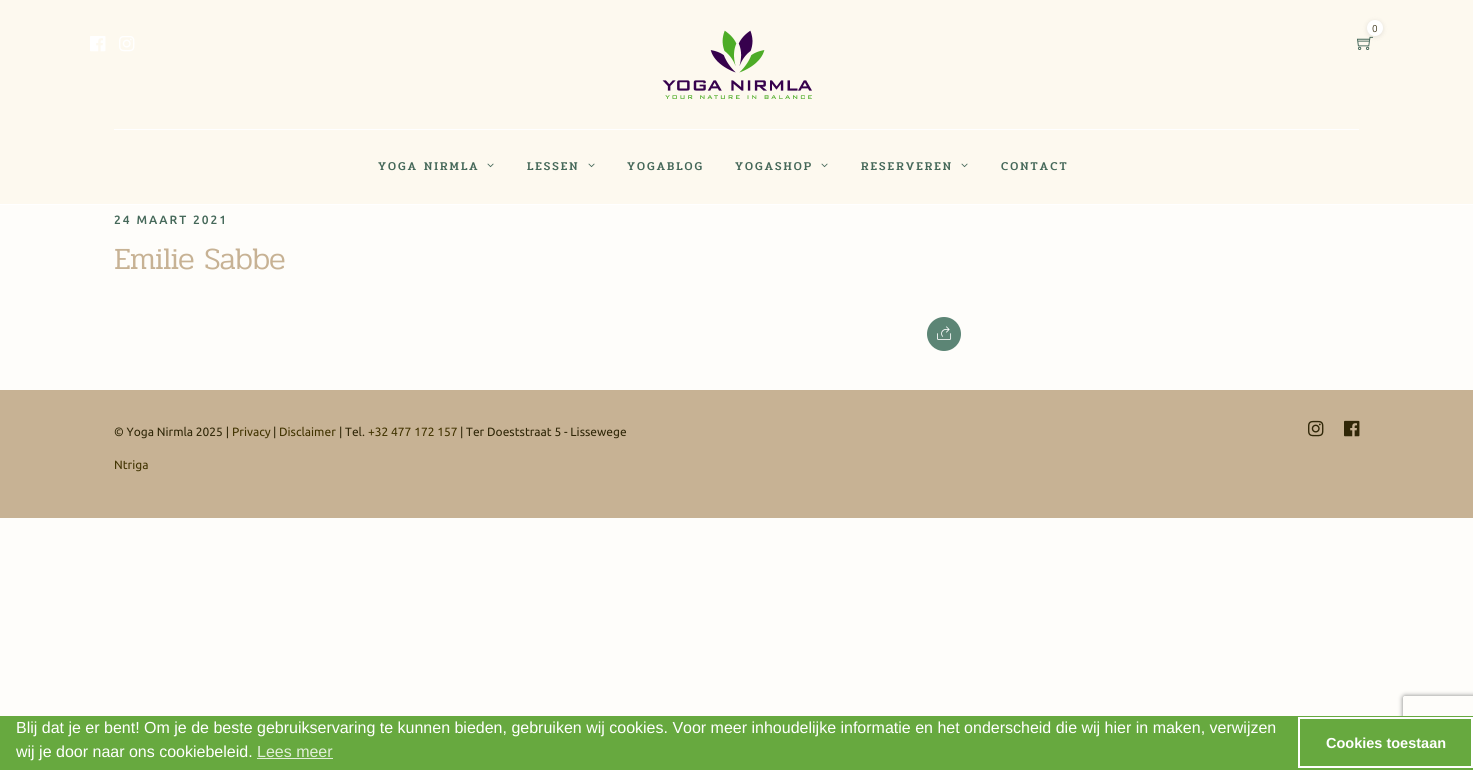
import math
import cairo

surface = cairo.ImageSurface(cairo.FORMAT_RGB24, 1473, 770)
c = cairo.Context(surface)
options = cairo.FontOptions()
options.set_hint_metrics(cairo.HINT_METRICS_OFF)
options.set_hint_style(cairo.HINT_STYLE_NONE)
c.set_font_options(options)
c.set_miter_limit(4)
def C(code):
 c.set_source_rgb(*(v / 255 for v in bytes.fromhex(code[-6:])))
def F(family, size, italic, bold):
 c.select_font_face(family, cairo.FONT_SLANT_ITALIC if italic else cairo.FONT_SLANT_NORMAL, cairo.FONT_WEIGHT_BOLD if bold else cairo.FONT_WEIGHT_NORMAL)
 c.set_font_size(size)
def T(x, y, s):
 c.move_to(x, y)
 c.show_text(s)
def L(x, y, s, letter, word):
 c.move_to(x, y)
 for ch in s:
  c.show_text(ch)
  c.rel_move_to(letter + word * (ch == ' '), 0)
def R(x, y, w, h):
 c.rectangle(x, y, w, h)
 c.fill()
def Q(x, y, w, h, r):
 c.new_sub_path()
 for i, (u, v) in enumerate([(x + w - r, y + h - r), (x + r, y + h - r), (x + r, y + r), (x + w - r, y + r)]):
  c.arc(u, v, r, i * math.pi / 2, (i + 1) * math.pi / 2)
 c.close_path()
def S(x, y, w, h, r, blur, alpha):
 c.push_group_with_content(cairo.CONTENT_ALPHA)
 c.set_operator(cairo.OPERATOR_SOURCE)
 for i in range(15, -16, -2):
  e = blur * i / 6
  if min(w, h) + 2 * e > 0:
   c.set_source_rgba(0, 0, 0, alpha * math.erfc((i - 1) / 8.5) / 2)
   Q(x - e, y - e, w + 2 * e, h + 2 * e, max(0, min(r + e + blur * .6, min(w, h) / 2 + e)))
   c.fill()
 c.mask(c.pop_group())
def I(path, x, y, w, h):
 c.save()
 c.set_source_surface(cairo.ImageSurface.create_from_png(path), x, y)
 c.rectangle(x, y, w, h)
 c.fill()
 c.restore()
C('fefdfa')
c.paint()
C('fdf9ef')
R(0,0,1473,204)
C('ffffff')
R(0,204,1473,1)
I('1.png',1357,36,16,14)
C('000000')
S(1367,21,16,16,8,2.5,.1)
C('ffffff')
c.arc(1375,28,8,0,2 * math.pi)
c.fill()
F('Ubuntu Light',10,0,0)
C('302708')
T(1372,32,'0')
I('2.png',90,36,16,16)
I('3.png',119,36,16,16)
I('4.png',662,30,150,69)
C('ffffff')
R(114,129,1245,1)
F('Pridi Medium',12,0,0)
C('456859')
L(378,170,'YOGA NIRMLA',2,0)
I('5.png',487,163,7,5)
L(527,170,'LESSEN',2,0)
I('5.png',588,163,7,5)
L(627,170,'YOGABLOG',2,0)
L(735,170,'YOGASHOP',2,0)
I('5.png',821,163,7,5)
L(861,170,'RESERVEREN',2,0)
I('5.png',961,163,7,5)
L(1001,170,'CONTACT',2,0)
F('Ubuntu Medium',12,0,0)
L(114,224,'24 MAART 2021',2,0)
F('Pridi Light',31,0,0)
C('c7b294')
L(114,269,'Emilie Sabbe',-1,0)
C('5c8575')
c.new_path()
c.arc(944,334,16,0,2 * math.pi)
c.fill_preserve()
c.stroke()
I('6.png',937,326,15,14)
C('c7b294')
R(0,390,1473,128)
F('Ubuntu',12,0,0)
C('302708')
T(114,436,'© Yoga Nirmla 2025 |')
C('413300')
T(232,436,'Privacy')
C('302708')
T(273,436,'|')
C('413300')
T(279,436,'Disclaimer')
C('302708')
T(339,436,'| Tel.')
C('413300')
T(368,436,'+32 477 172 157')
C('302708')
T(460,436,'| Ter Doeststraat 5 - Lissewege')
C('413300')
T(114,469,'Ntriga')
I('7.png',1308,420,16,17)
I('8.png',1344,420,16,17)
c.save()
c.set_fill_rule(cairo.FILL_RULE_EVEN_ODD)
c.new_path()
c.move_to(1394,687)
c.line_to(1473,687)
c.line_to(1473,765)
c.line_to(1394,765)
c.close_path()
c.move_to(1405,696)
c.line_to(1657,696)
c.curve_to(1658,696,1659,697,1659,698)
c.line_to(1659,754)
c.curve_to(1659,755,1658,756,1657,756)
c.line_to(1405,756)
c.curve_to(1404,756,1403,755,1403,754)
c.line_to(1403,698)
c.curve_to(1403,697,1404,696,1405,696)
c.close_path()
c.clip()
C('808080')
S(1403,696,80,60,2,2.5,1)
c.restore()
C('67a93f')
R(0,716,1473,54)
F('Liberation Sans',16,0,0)
C('ffffff')
T(16,733,'Blij dat je er bent! Om je de beste gebruikservaring te kunnen bieden, gebruiken wij cookies. Voor meer inhoudelijke informatie en het onderscheid die wij hier in maken, verwijzen')
T(16,757,'wij je door naar ons cookiebeleid.')
C('e1eed9')
T(257,757,'Lees meer')
R(257,758,76,1)
c.rectangle(1299,718,173,49)
C('ffffff')
c.stroke()
F('Liberation Sans',14.5,0,1)
T(1326,748,'Cookies toestaan')
surface.write_to_png('o.png')
